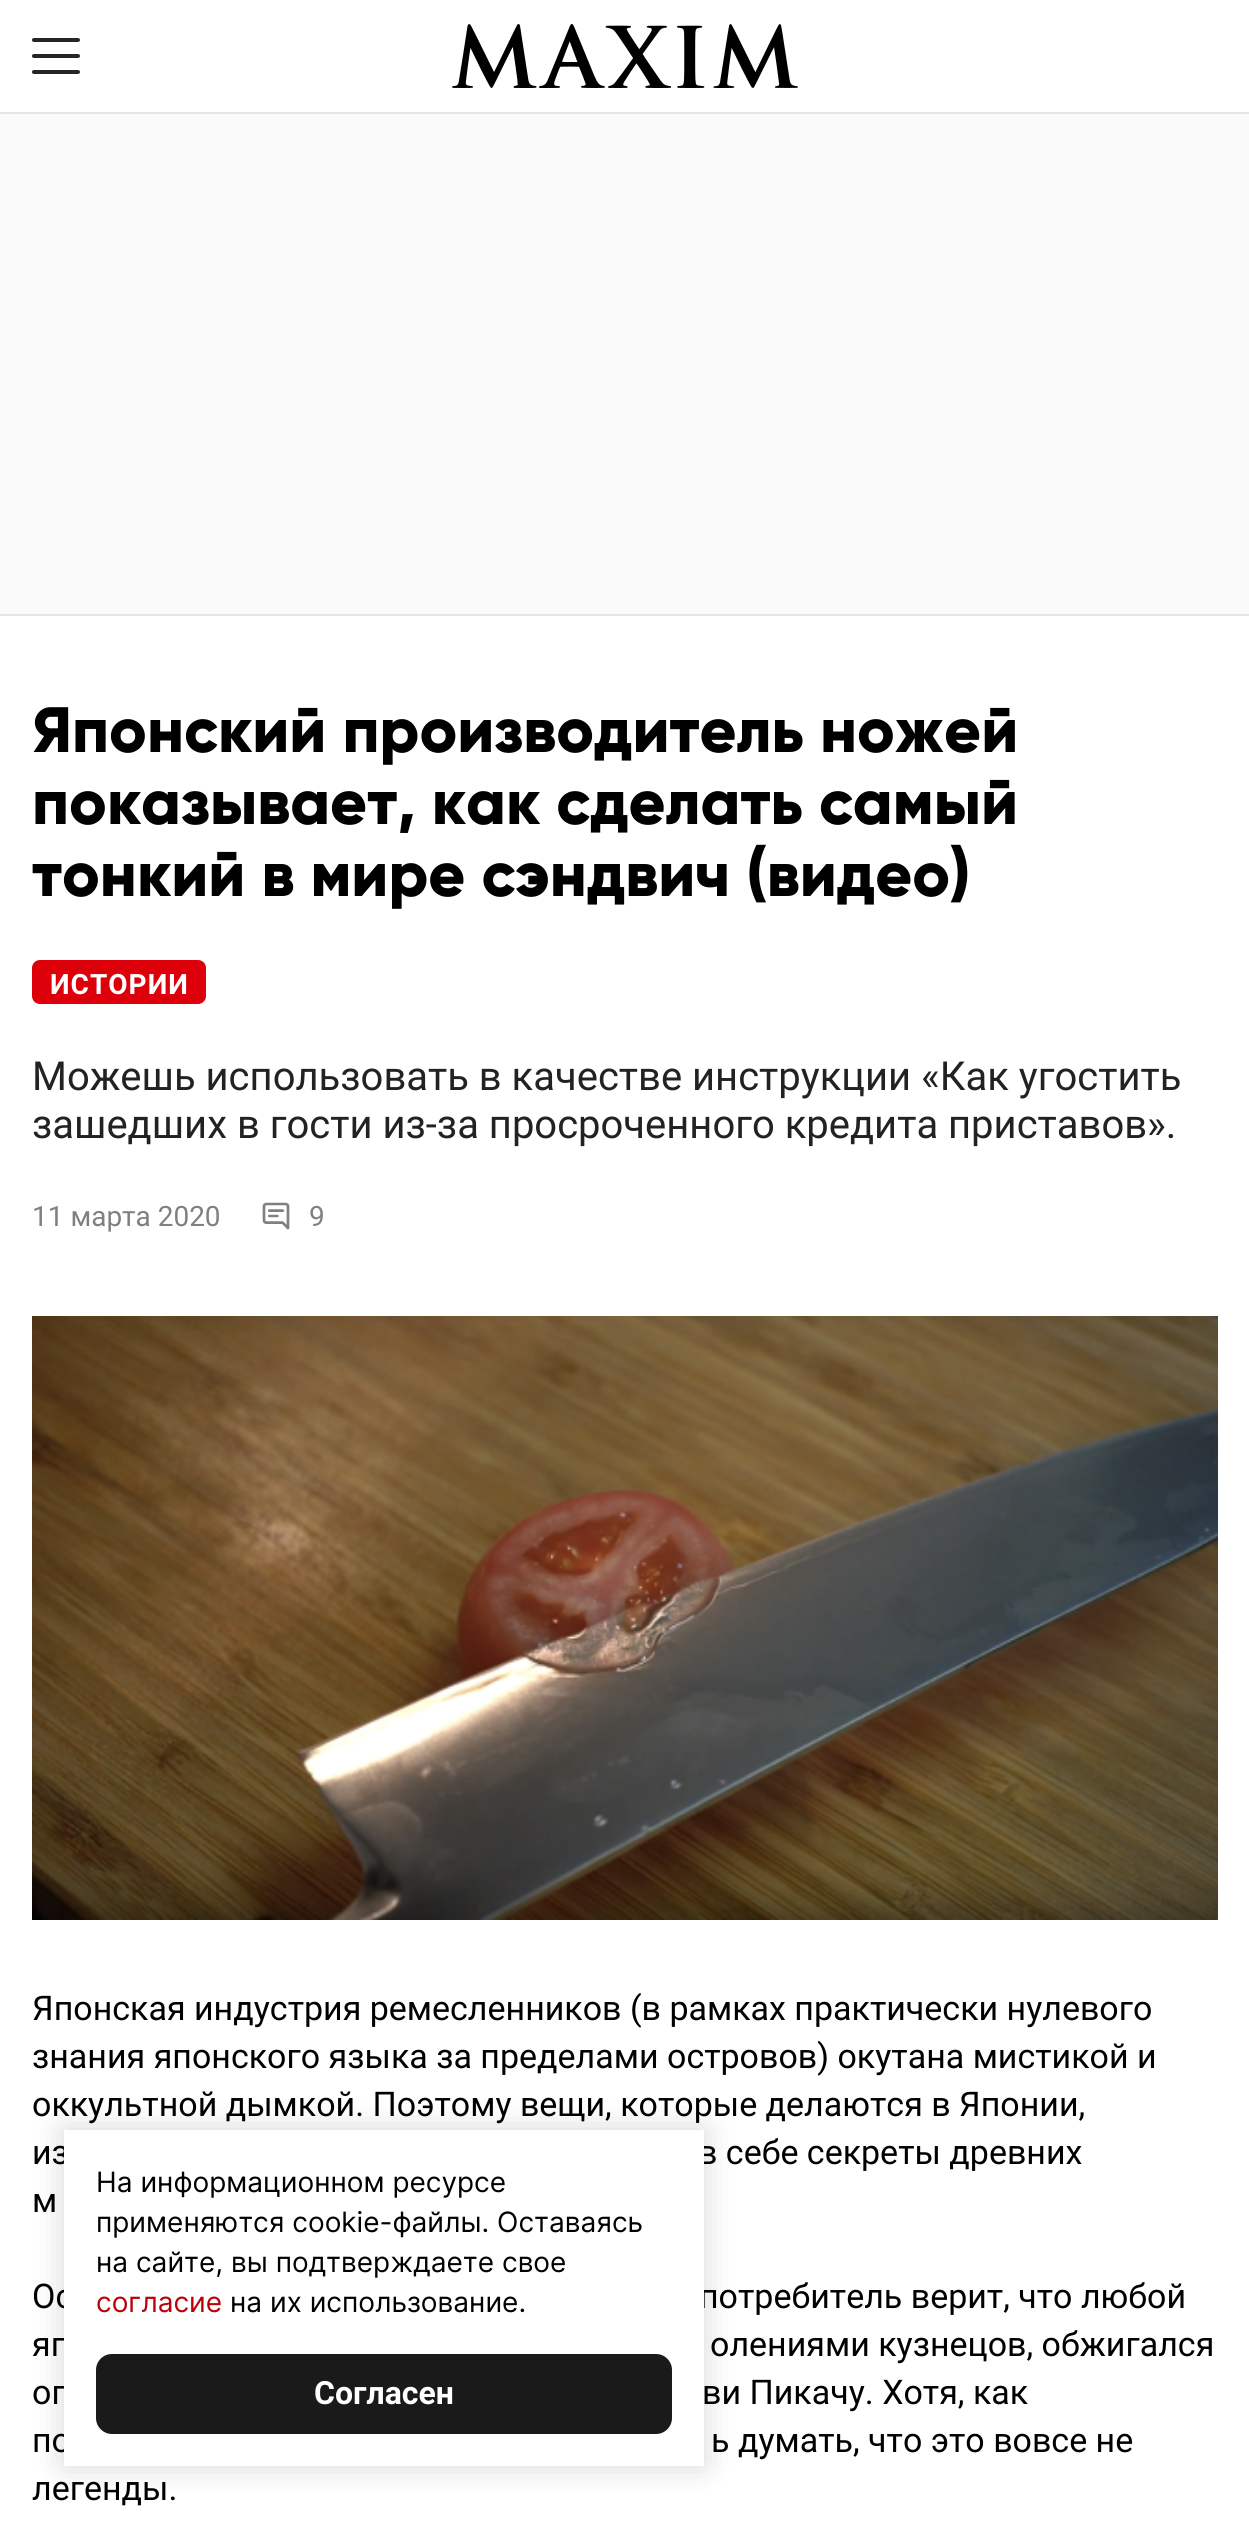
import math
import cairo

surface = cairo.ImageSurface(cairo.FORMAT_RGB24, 1249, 2529)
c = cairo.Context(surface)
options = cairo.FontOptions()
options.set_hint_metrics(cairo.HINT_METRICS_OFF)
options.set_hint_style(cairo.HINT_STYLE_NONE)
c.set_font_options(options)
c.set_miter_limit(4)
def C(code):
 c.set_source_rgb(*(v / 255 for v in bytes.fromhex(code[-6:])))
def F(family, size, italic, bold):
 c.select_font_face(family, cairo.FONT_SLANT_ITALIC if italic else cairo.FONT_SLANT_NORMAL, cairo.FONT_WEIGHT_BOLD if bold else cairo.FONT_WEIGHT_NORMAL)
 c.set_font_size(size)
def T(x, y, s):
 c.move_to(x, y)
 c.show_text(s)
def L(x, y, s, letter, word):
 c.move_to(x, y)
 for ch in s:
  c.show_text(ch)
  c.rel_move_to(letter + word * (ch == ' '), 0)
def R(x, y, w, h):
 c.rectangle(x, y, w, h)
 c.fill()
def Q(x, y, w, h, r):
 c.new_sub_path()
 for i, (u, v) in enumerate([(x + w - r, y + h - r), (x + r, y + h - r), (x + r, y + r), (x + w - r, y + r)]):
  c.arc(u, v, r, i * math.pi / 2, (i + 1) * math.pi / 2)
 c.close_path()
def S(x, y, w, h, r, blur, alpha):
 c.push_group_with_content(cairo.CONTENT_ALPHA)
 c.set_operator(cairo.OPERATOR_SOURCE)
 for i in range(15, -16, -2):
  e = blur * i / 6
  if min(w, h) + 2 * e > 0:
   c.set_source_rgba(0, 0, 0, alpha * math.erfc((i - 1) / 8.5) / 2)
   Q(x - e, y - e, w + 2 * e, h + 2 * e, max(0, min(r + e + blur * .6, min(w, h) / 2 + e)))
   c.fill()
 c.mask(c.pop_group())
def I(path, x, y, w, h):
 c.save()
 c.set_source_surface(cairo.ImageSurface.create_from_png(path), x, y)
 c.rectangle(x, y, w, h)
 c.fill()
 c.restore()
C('ffffff')
c.paint()
I('1.png',32,38,48,36)
I('2.png',452,24,346,64)
C('e5e5e5')
R(0,112,1249,2)
R(0,614,1249,2)
C('fafafa')
R(0,114,1249,500)
F('Gilroy ExtraBold',64,0,0)
C('000000')
T(32,752,'Японский производитель ножей')
T(32,824,'показывает, как сделать самый')
T(32,896,'тонкий в мире сэндвич (видео)')
C('dd000b')
Q(33,961,172,42,7)
c.fill_preserve()
c.stroke()
F('Roboto',28,0,1)
C('ffffff')
L(50,994,'ИСТОРИИ',1,0)
F('Roboto',40,0,0)
C('222222')
T(32,1090,'Можешь использовать в качестве инструкции «Как угостить')
T(32,1138,'зашедших в гости из-за просроченного кредита приставов».')
F('Roboto',28,0,0)
C('808080')
T(32,1226,'11 марта 2020')
I('3.png',262,1202,28,28)
T(309,1226,'9')
I('4.png',32,1316,1186,604)
F('Roboto',34,0,0)
C('000000')
T(32,2020,'Японская индустрия ремесленников (в рамках практически нулевого')
T(32,2068,'знания японского языка за пределами островов) окутана мистикой и')
T(32,2116,'оккультной дымкой. Поэтому вещи, которые делаются в Японии,')
T(32,2164,'из')
T(698,2164,'в себе секреты древних')
T(32,2212,'м')
T(32,2308,'Ос')
T(699,2308,'потребитель верит, что любой')
T(32,2356,'яп')
T(710,2356,'олениями кузнецов, обжигался')
T(32,2404,'ог')
T(702,2404,'ви Пикачу. Хотя, как')
T(32,2452,'по')
T(711,2452,'ь думать, что это вовсе не')
T(32,2500,'легенды.')
C('000000')
S(64,2130,640,336,0,16,.16)
C('ffffff')
R(64,2130,640,336)
F('Inter',28,0,0)
C('000000')
T(96,2192,'На информационном ресурсе')
T(96,2232,'применяются cookie-файлы. Оставаясь')
T(96,2272,'на сайте, вы подтверждаете свое')
C('ba0009')
T(96,2312,'согласие')
C('000000')
T(230,2312,'на их использование.')
C('1a1a1a')
Q(96,2354,576,80,16)
c.fill()
F('Roboto',32,0,1)
C('ffffff')
T(314,2404,'Согласен')
surface.write_to_png('o.png')
